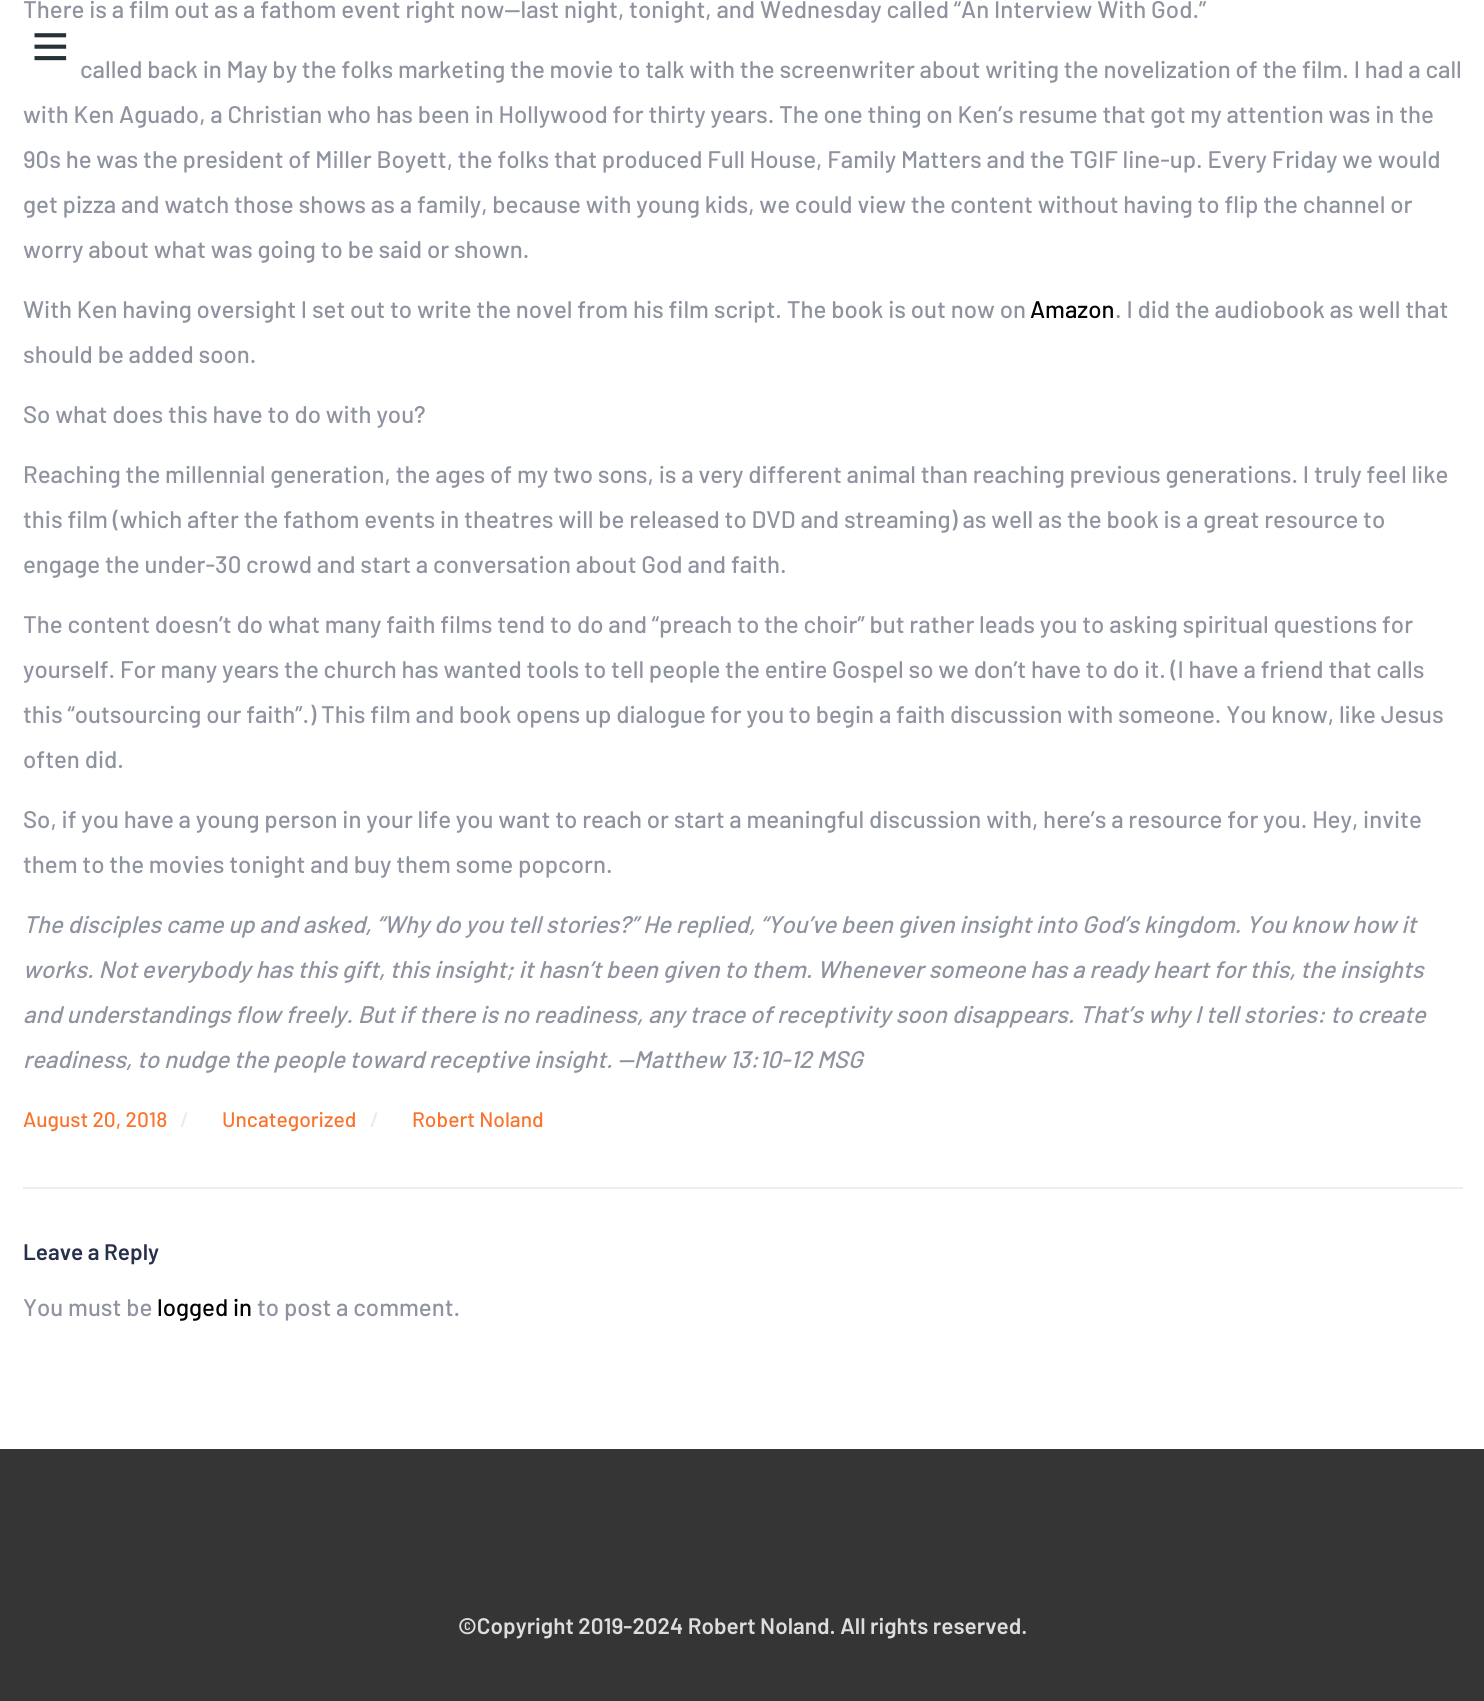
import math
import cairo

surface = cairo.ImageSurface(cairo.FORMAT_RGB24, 1484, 1701)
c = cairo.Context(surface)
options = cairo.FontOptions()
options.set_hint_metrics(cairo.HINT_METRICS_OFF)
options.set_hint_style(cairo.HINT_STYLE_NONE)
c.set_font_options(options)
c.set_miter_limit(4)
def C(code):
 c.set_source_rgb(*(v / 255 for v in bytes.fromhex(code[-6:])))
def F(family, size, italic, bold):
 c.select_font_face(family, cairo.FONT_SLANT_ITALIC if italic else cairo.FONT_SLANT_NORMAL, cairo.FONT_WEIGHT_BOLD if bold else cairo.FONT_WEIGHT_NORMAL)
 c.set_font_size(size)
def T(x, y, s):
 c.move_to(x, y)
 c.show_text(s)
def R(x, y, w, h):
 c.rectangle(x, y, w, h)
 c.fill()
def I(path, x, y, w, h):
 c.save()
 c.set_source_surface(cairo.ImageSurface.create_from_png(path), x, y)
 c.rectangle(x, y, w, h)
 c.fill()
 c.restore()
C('ffffff')
c.paint()
F('Barlow Medium',24,0,0)
C('8e939f')
T(23,18,'There is a film out as a fathom event right now—last night, tonight, and Wednesday called “An Interview With God.”')
T(80,78,'called back in May by the folks marketing the movie to talk with the screenwriter about writing the novelization of the film. I had a call')
T(23,123,'with Ken Aguado, a Christian who has been in Hollywood for thirty years. The one thing on Ken’s resume that got my attention was in the')
T(23,168,'90s he was the president of Miller Boyett, the folks that produced Full House, Family Matters and the TGIF line-up. Every Friday we would')
T(23,213,'get pizza and watch those shows as a family, because with young kids, we could view the content without having to flip the channel or')
T(23,258,'worry about what was going to be said or shown.')
T(23,318,'With Ken having oversight I set out to write the novel from his film script. The book is out now on')
C('020202')
T(1030,318,'Amazon')
C('8e939f')
T(1115,318,'. I did the audiobook as well that')
T(23,363,'should be added soon.')
T(23,423,'So what does this have to do with you?')
T(23,483,'Reaching the millennial generation, the ages of my two sons, is a very different animal than reaching previous generations. I truly feel like')
T(23,528,'this film (which after the fathom events in theatres will be released to DVD and streaming) as well as the book is a great resource to')
T(23,573,'engage the under-30 crowd and start a conversation about God and faith.')
T(23,633,'The content doesn’t do what many faith films tend to do and “preach to the choir” but rather leads you to asking spiritual questions for')
T(23,678,'yourself. For many years the church has wanted tools to tell people the entire Gospel so we don’t have to do it. (I have a friend that calls')
T(23,723,'this “outsourcing our faith”.) This film and book opens up dialogue for you to begin a faith discussion with someone. You know, like Jesus')
T(23,768,'often did.')
T(23,828,'So, if you have a young person in your life you want to reach or start a meaningful discussion with, here’s a resource for you. Hey, invite')
T(23,873,'them to the movies tonight and buy them some popcorn.')
F('Barlow Medium',24,1,0)
T(23,933,'The disciples came up and asked, “Why do you tell stories?” He replied, “You’ve been given insight into God’s kingdom. You know how it')
T(23,978,'works. Not everybody has this gift, this insight; it hasn’t been given to them. Whenever someone has a ready heart for this, the insights')
T(23,1023,'and understandings flow freely. But if there is no readiness, any trace of receptivity soon disappears. That’s why I tell stories: to create')
T(23,1068,'readiness, to nudge the people toward receptive insight. —Matthew 13:10-12 MSG')
F('Barlow Medium',21,0,0)
C('fa732c')
T(23,1127,'August 20, 2018')
C('e9e9e9')
T(180,1127,'/')
C('fa732c')
T(222,1127,'Uncategorized')
C('e9e9e9')
T(370,1127,'/')
C('fa732c')
T(412,1127,'Robert Noland')
C('eeeeee')
R(23,1187,1440,2)
F('Barlow SemiBold',22.5,0,0)
C('28314a')
T(23,1260,'Leave a Reply')
F('Barlow Medium',24,0,0)
C('8e939f')
T(23,1316,'You must be')
C('020202')
T(157,1316,'logged in')
C('8e939f')
T(257,1316,'to post a comment.')
C('ffffff')
R(54,18,25,1)
I('1.png',34,33,33,28)
C('353535')
R(0,1449,1484,252)
F('Barlow SemiBold',22.5,0,0)
C('dddddd')
T(458,1634,'©Copyright 2019-2024 Robert Noland. All rights reserved.')
surface.write_to_png('o.png')
